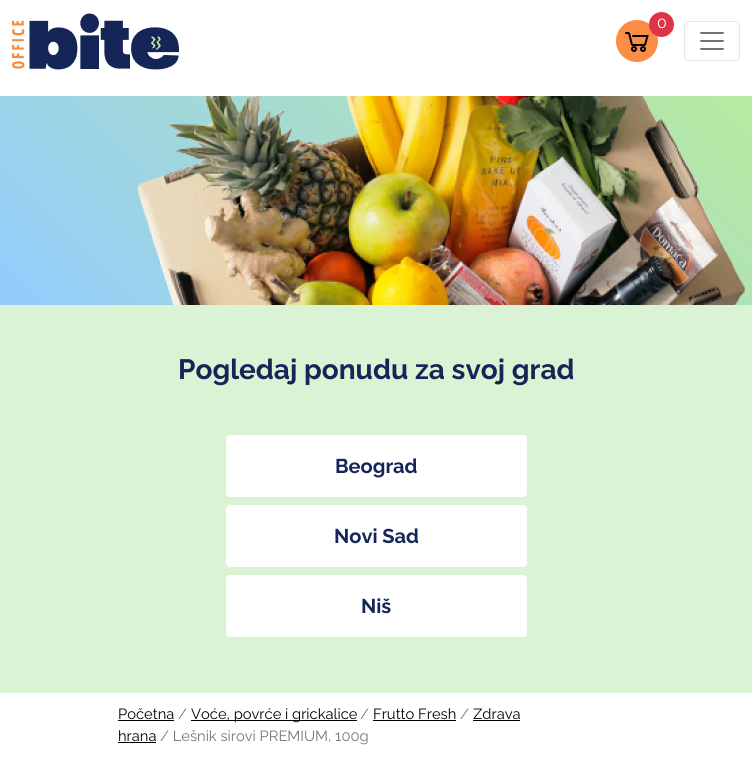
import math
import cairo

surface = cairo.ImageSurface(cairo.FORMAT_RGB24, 752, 777)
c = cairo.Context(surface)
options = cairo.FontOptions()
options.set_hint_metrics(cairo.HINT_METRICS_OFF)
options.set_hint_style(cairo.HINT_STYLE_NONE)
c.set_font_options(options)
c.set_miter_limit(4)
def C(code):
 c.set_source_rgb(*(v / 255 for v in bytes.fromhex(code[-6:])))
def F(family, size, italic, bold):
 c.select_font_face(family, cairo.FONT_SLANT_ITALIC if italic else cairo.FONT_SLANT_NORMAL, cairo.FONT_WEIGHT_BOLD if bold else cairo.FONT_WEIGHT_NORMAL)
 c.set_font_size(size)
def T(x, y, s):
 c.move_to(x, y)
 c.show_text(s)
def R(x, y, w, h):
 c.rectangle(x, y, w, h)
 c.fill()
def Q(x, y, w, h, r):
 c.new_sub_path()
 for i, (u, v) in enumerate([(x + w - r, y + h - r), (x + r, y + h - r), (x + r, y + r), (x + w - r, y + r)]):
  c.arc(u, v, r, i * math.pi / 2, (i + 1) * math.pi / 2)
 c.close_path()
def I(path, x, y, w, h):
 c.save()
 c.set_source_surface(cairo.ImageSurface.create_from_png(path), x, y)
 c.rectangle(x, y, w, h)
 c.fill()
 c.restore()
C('ffffff')
c.paint()
I('1.png',12,13,167,57)
C('fc8d46')
c.arc(637,41,21,0,2 * math.pi)
c.fill()
C('dc3545')
c.arc(661.5,24.5,12.5,0,2 * math.pi)
c.fill()
F('Raleway',16,0,0)
C('ffffff')
T(657,28,'0')
I('2.png',625,32,24,20)
Q(684.5,21.5,55,39,3.5)
C('e6e6e6')
c.set_line_width(1)
c.stroke()
I('3.png',700,32,24,18)
gradient = cairo.LinearGradient(136,441,616,-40)
gradient.add_color_stop_rgba(0,0.576,0.8,0.996,1)
gradient.add_color_stop_rgba(1,0.722,0.918,0.624,1)
c.set_source(gradient)
R(0,96,752,209)
I('4.png',137,96,609,209)
C('daf3d5')
R(0,305,752,388)
F('Raleway',28,0,1)
C('162558')
T(178,379,'Pogledaj ponudu za svoj grad')
C('ffffff')
Q(226,435,301,62,4)
c.fill()
F('Raleway',20,0,1)
C('162558')
T(335,473,'Beograd')
C('ffffff')
Q(226,505,301,62,4)
c.fill()
C('162558')
T(334,543,'Novi Sad')
C('ffffff')
Q(226,575,301,62,4)
c.fill()
C('162558')
T(361,613,'Niš')
F('Raleway',14.75,0,0)
C('000000')
T(118,719,'Početna')
R(118,720,56,1)
C('767676')
T(178,719,'/')
C('000000')
R(191,720,166,1)
T(191,719,'Voće, povrće i grickalice')
C('767676')
T(360,719,'/')
C('000000')
T(373,719,'Frutto Fresh')
R(373,720,83,1)
C('767676')
T(460,719,'/')
C('000000')
T(473,719,'Zdrava')
R(473,720,47,1)
T(118,741,'hrana')
R(118,742,38,1)
C('767676')
T(160,741,'/ Lešnik sirovi PREMIUM, 100g')
surface.write_to_png('o.png')
